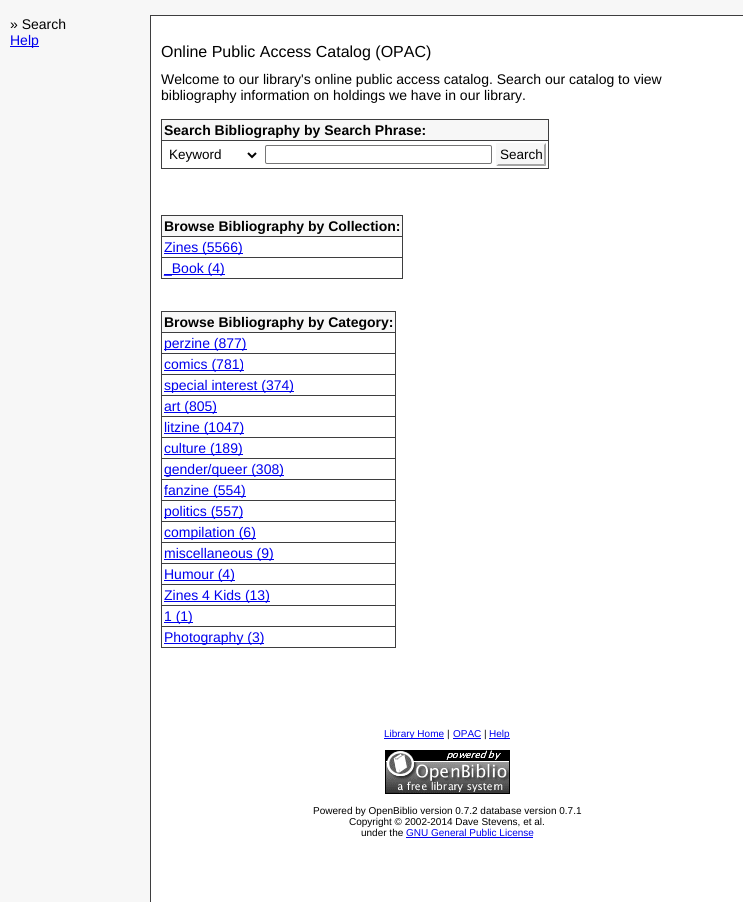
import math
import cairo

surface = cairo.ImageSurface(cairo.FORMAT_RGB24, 743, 902)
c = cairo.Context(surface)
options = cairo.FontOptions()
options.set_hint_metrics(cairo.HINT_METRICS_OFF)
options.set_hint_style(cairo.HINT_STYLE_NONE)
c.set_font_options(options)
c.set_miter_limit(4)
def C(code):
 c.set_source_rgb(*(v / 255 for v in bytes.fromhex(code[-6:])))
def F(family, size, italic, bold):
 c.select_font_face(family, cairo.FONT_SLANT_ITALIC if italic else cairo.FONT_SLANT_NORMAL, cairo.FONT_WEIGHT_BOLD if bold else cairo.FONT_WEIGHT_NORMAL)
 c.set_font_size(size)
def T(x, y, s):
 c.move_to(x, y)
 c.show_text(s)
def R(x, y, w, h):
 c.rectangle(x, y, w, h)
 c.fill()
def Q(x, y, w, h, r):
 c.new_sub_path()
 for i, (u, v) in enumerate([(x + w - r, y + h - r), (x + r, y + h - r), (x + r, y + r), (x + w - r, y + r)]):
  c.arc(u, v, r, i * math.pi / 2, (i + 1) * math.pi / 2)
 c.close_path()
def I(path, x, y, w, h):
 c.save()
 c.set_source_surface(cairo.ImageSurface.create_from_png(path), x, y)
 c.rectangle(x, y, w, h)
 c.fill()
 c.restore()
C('ffffff')
c.paint()
C('f7f7f7')
R(0,0,743,15)
R(0,15,150,1)
C('3e3e3f')
R(150,15,593,1)
C('f7f7f7')
R(0,16,150,886)
C('3e3e3f')
R(150,16,1,886)
F('Liberation Sans',14,0,0)
C('000000')
T(10,29,'» Search')
C('0000ee')
R(10,46,29,1)
T(10,45,'Help')
F('Liberation Sans',16,0,0)
C('000000')
T(161,57,'Online Public Access Catalog (OPAC)')
F('Liberation Sans',14,0,0)
T(161,84,'Welcome to our library\'s online public access catalog. Search our catalog to view')
T(161,100,'bibliography information on holdings we have in our library.')
C('f7f7f7')
R(162,120,386,20)
C('3e3e3f')
R(161,119,388,1)
R(161,140,388,1)
R(548,140,1,29)
R(548,119,1,22)
R(161,168,388,1)
R(161,140,1,29)
R(161,119,1,22)
F('Liberation Sans',14,0,1)
C('000000')
T(164,135,'Search Bibliography by Search Phrase:')
c.new_path()
c.move_to(248,153)
c.line_to(252,157)
c.line_to(256,153)
c.stroke()
F('Liberation Sans',13.5,0,0)
T(169,159,'Keyword')
Q(265.5,145.5,226,18,1.5)
C('767676')
c.set_line_width(1)
c.stroke()
C('f7f7f7')
R(496,143,50,23)
C('a5a5a5')
c.new_path()
c.move_to(546,143)
c.line_to(546,166)
c.line_to(544,164)
c.line_to(544,145)
c.close_path()
c.fill()
c.new_path()
c.move_to(546,166)
c.line_to(496,166)
c.line_to(498,164)
c.line_to(544,164)
c.close_path()
c.fill()
C('f7f7f7')
c.new_path()
c.move_to(496,166)
c.line_to(496,143)
c.line_to(498,145)
c.line_to(498,164)
c.close_path()
c.fill()
C('000000')
T(500,159,'Search')
C('f7f7f7')
R(162,216,240,20)
C('3e3e3f')
R(161,215,242,1)
R(161,236,242,1)
R(161,257,242,1)
R(402,257,1,22)
R(402,236,1,22)
R(402,215,1,22)
R(161,278,242,1)
R(161,257,1,22)
R(161,236,1,22)
R(161,215,1,22)
F('Liberation Sans',14,0,1)
C('000000')
T(164,231,'Browse Bibliography by Collection:')
C('0000ee')
R(164,253,79,1)
F('Liberation Sans',14,0,0)
T(164,252,'Zines (5566)')
R(164,274,61,1)
T(164,273,'_Book (4)')
C('f7f7f7')
R(162,312,233,20)
C('3e3e3f')
R(161,311,235,1)
R(161,332,235,1)
R(161,353,235,1)
R(161,374,235,1)
R(161,395,235,1)
R(161,416,235,1)
R(161,437,235,1)
R(161,458,235,1)
R(161,479,235,1)
R(161,500,235,1)
R(161,521,235,1)
R(161,542,235,1)
R(161,563,235,1)
R(161,584,235,1)
R(161,605,235,1)
R(161,626,235,1)
R(395,626,1,22)
R(395,605,1,22)
R(395,584,1,22)
R(395,563,1,22)
R(395,542,1,22)
R(395,521,1,22)
R(395,500,1,22)
R(395,479,1,22)
R(395,458,1,22)
R(395,437,1,22)
R(395,416,1,22)
R(395,395,1,22)
R(395,374,1,22)
R(395,353,1,22)
R(395,332,1,22)
R(395,311,1,22)
R(161,647,235,1)
R(161,626,1,22)
R(161,605,1,22)
R(161,584,1,22)
R(161,563,1,22)
R(161,542,1,22)
R(161,521,1,22)
R(161,500,1,22)
R(161,479,1,22)
R(161,458,1,22)
R(161,437,1,22)
R(161,416,1,22)
R(161,395,1,22)
R(161,374,1,22)
R(161,353,1,22)
R(161,332,1,22)
R(161,311,1,22)
F('Liberation Sans',14,0,1)
C('000000')
T(164,327,'Browse Bibliography by Category:')
C('0000ee')
R(164,349,83,1)
F('Liberation Sans',14,0,0)
T(164,348,'perzine (877)')
R(164,370,80,1)
T(164,369,'comics (781)')
R(164,391,130,1)
T(164,390,'special interest (374)')
R(164,412,53,1)
T(164,411,'art (805)')
R(164,433,80,1)
T(164,432,'litzine (1047)')
R(164,454,79,1)
T(164,453,'culture (189)')
R(164,475,120,1)
T(164,474,'gender/queer (308)')
R(164,496,82,1)
T(164,495,'fanzine (554)')
R(164,517,79,1)
T(164,516,'politics (557)')
R(164,538,92,1)
T(164,537,'compilation (6)')
R(164,559,110,1)
T(164,558,'miscellaneous (9)')
R(164,580,71,1)
T(164,579,'Humour (4)')
R(164,601,106,1)
T(164,600,'Zines 4 Kids (13)')
R(164,622,29,1)
T(164,621,'1 (1)')
R(164,643,100,1)
T(164,642,'Photography (3)')
R(384,738,60,1)
F('Liberation Sans',10,0,0)
T(384,737,'Library Home')
C('000000')
T(447,737,'|')
C('0000ee')
T(453,737,'OPAC')
R(453,738,28,1)
C('000000')
T(484,737,'|')
C('0000ee')
R(489,738,21,1)
T(489,737,'Help')
I('1.png',385,750,125,44)
C('000000')
T(313,814,'Powered by OpenBiblio version 0.7.2 database version 0.7.1')
T(349,825,'Copyright © 2002-2014 Dave Stevens, et al.')
T(361,836,'under the')
C('0000ee')
T(406,836,'GNU General Public License')
R(406,837,127,1)
surface.write_to_png('o.png')
